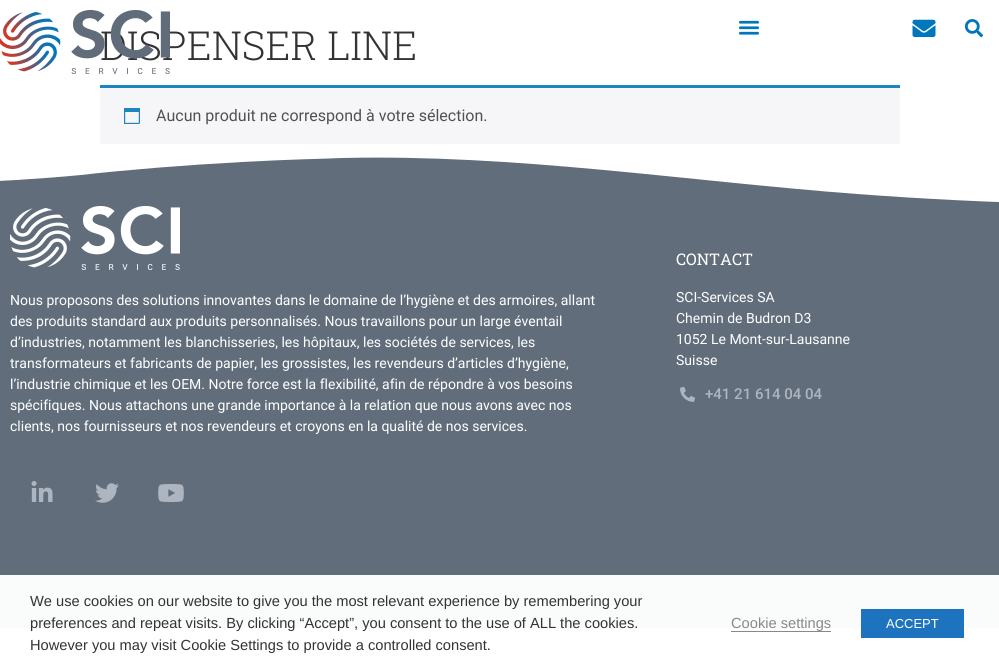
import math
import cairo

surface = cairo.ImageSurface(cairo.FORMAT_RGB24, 999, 671)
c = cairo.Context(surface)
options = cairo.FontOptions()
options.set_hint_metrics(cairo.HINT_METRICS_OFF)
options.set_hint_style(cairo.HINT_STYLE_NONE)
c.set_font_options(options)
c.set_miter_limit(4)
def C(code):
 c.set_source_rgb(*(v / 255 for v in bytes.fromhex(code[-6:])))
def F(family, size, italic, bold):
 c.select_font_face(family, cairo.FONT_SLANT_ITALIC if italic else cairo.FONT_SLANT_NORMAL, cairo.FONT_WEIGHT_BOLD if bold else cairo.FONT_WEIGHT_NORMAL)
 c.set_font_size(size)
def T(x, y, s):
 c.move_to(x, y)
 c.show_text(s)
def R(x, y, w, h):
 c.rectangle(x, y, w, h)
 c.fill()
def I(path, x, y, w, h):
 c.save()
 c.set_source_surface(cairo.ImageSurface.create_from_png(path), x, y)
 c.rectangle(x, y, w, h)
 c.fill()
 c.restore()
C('ffffff')
c.paint()
F('Roboto Slab Light',40,0,0)
C('333333')
T(100,60,'DISPENSER LINE')
I('1.png',0,10,170,64)
I('2.png',738,20,22,15)
I('3.png',912,19,24,18)
I('4.png',964,19,19,19)
C('f6f5f8')
R(100,88,800,56)
C('1e85be')
R(100,85,800,3)
I('5.png',124,108,16,16)
F('Roboto',16,0,0)
C('515151')
T(156,121,'Aucun produit ne correspond à votre sélection.')
C('616d7b')
R(0,157,999,418)
C('ffffff')
c.new_path()
c.move_to(342,158)
c.curve_to(515,154,685,181,857,194)
c.curve_to(990,204,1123,207,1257,204)
c.curve_to(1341,202,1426,198,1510,190)
c.line_to(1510,155)
c.line_to(-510,155)
c.line_to(-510,170)
c.curve_to(-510,170,-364,187,-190,186)
c.curve_to(-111,186,-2,183,81,175)
c.curve_to(124,170,186,165,242,162)
c.curve_to(297,159,321,159,342,158)
c.close_path()
c.fill()
I('6.png',10,206,170,64)
F('Roboto',14,0,0)
T(10,305,'Nous proposons des solutions innovantes dans le domaine de l’hygiène et des armoires, allant')
T(10,326,'des produits standard aux produits personnalisés. Nous travaillons pour un large éventail')
T(10,347,'d’industries, notamment les blanchisseries, les hôpitaux, les sociétés de services, les')
T(10,368,'transformateurs et fabricants de papier, les grossistes, les revendeurs d’articles d’hygiène,')
T(10,389,'l’industrie chimique et les OEM. Notre force est la flexibilité, afin de répondre à vos besoins')
T(10,410,'spécifiques. Nous attachons une grande importance à la relation que nous avons avec nos')
T(10,431,'clients, nos fournisseurs et nos revendeurs et croyons en la qualité de nos services.')
I('7.png',31,481,22,21)
I('8.png',95,483,24,20)
I('9.png',158,484,26,18)
F('Roboto Slab',16,0,0)
T(676,265,'CONTACT')
F('Roboto',14,0,0)
T(676,302,'SCI-Services SA')
T(676,323,'Chemin de Budron D3')
T(676,344,'1052 Le Mont-sur-Lausanne')
T(676,365,'Suisse')
I('10.png',680,386,15,16)
F('Roboto Medium',15,0,0)
C('acb5c0')
T(705,399,'+41 21 614 04 04')
C('fafbfb')
R(0,575,999,53)
F('Liberation Sans',14.65,0,0)
C('333333')
T(30,606,'We use cookies on our website to give you the most relevant experience by remembering your')
T(30,628,'preferences and repeat visits. By clicking “Accept”, you consent to the use of ALL the cookies.')
T(30,650,'However you may visit Cookie Settings to provide a controlled consent.')
C('898888')
R(731,631,100,1)
T(731,628,'Cookie settings')
C('1e73be')
R(861,609,103,29)
F('Liberation Sans',13,0,0)
C('ffffff')
T(886,628,'ACCEPT')
surface.write_to_png('o.png')
